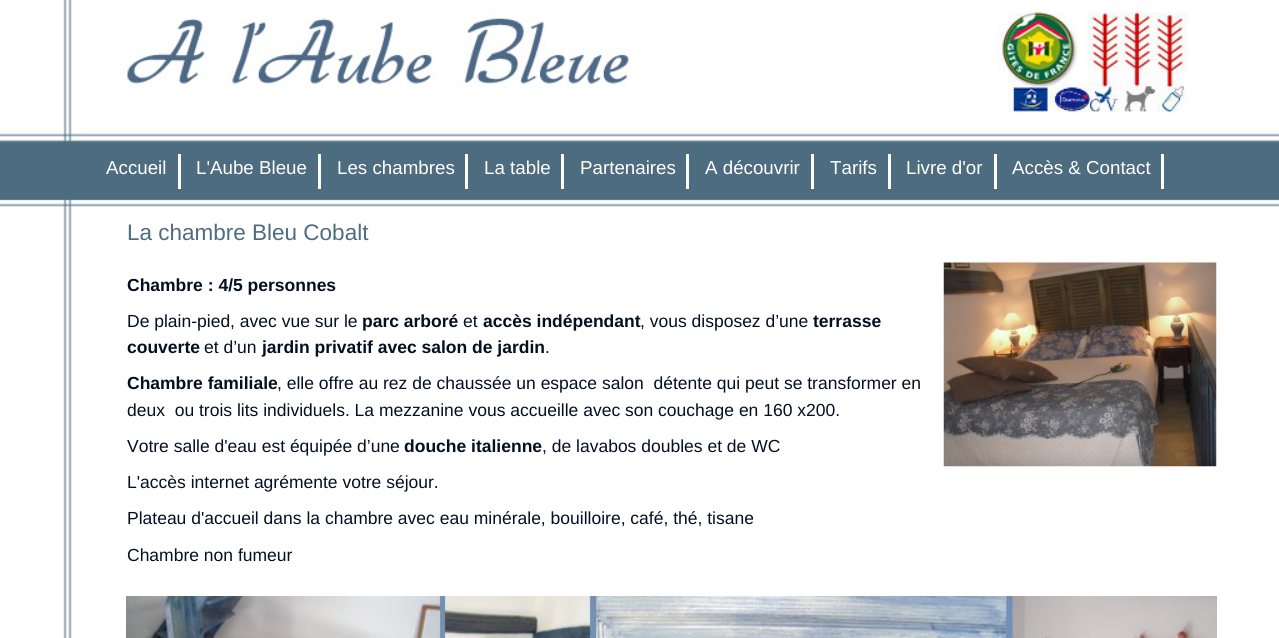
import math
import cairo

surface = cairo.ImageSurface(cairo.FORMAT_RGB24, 1279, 638)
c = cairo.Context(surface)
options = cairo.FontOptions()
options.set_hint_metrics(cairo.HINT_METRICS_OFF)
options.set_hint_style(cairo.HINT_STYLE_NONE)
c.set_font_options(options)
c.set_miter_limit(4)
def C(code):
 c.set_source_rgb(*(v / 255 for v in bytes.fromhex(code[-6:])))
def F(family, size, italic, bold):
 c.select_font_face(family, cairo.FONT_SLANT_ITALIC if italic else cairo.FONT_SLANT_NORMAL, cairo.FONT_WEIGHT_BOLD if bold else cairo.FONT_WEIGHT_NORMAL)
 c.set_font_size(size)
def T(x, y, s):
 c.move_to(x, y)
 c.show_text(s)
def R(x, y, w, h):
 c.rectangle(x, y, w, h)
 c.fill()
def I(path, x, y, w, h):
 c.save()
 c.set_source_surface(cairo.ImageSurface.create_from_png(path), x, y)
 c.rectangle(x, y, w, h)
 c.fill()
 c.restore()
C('ffffff')
c.paint()
I('1.png',0,133,1279,74)
I('2.png',63,0,9,638)
I('3.png',126,10,510,80)
I('4.png',997,12,191,101)
C('ffffff')
R(178,154,3,35)
F('Liberation Sans',18.75,0,0)
T(106,174,'Accueil')
R(318,154,3,35)
T(196,174,'L\'Aube Bleue')
R(465,154,3,35)
T(337,174,'Les chambres')
R(561,154,3,35)
T(484,174,'La table')
R(686,154,3,35)
T(580,174,'Partenaires')
R(811,154,3,35)
T(705,174,'A découvrir')
R(888,154,3,35)
T(830,174,'Tarifs')
R(994,154,3,35)
T(906,174,'Livre d\'or')
R(1161,154,3,35)
T(1012,174,'Accès & Contact')
F('Liberation Sans',22.5,0,0)
C('4d6c80')
T(127,240,'La chambre Bleu Cobalt')
F('Liberation Sans',17.5,0,1)
C('030f22')
T(127,291,'Chambre : 4/5 personnes')
I('5.png',943,262,274,205)
F('Liberation Sans',17.5,0,0)
T(127,327,'De plain-pied, avec vue sur le')
F('Liberation Sans',17.5,0,1)
T(362,327,'parc arboré')
F('Liberation Sans',17.5,0,0)
T(463,327,'et')
F('Liberation Sans',17.5,0,1)
T(483,327,'accès indépendant')
F('Liberation Sans',17.5,0,0)
T(640,327,', vous disposez d’une')
F('Liberation Sans',17.5,0,1)
T(813,327,'terrasse')
T(127,353,'couverte')
F('Liberation Sans',17.5,0,0)
T(204,353,'et d’un')
F('Liberation Sans',17.5,0,1)
T(262,353,'jardin privatif avec salon de jardin')
F('Liberation Sans',17.5,0,0)
T(545,353,'.')
F('Liberation Sans',17.5,0,1)
T(127,389,'Chambre familiale')
F('Liberation Sans',17.5,0,0)
T(277,389,', elle offre au rez de chaussée un espace salon  détente qui peut se transformer en')
T(127,416,'deux  ou trois lits individuels. La mezzanine vous accueille avec son couchage en 160 x200.')
T(127,452,'Votre salle d\'eau est équipée d’une')
F('Liberation Sans',17.5,0,1)
T(404,452,'douche italienne')
F('Liberation Sans',17.5,0,0)
T(542,452,', de lavabos doubles et de WC')
T(127,488,'L\'accès internet agrémente votre séjour.')
T(127,524,'Plateau d\'accueil dans la chambre avec eau minérale, bouilloire, café, thé, tisane')
T(127,561,'Chambre non fumeur')
I('6.png',126,596,1091,42)
surface.write_to_png('o.png')
